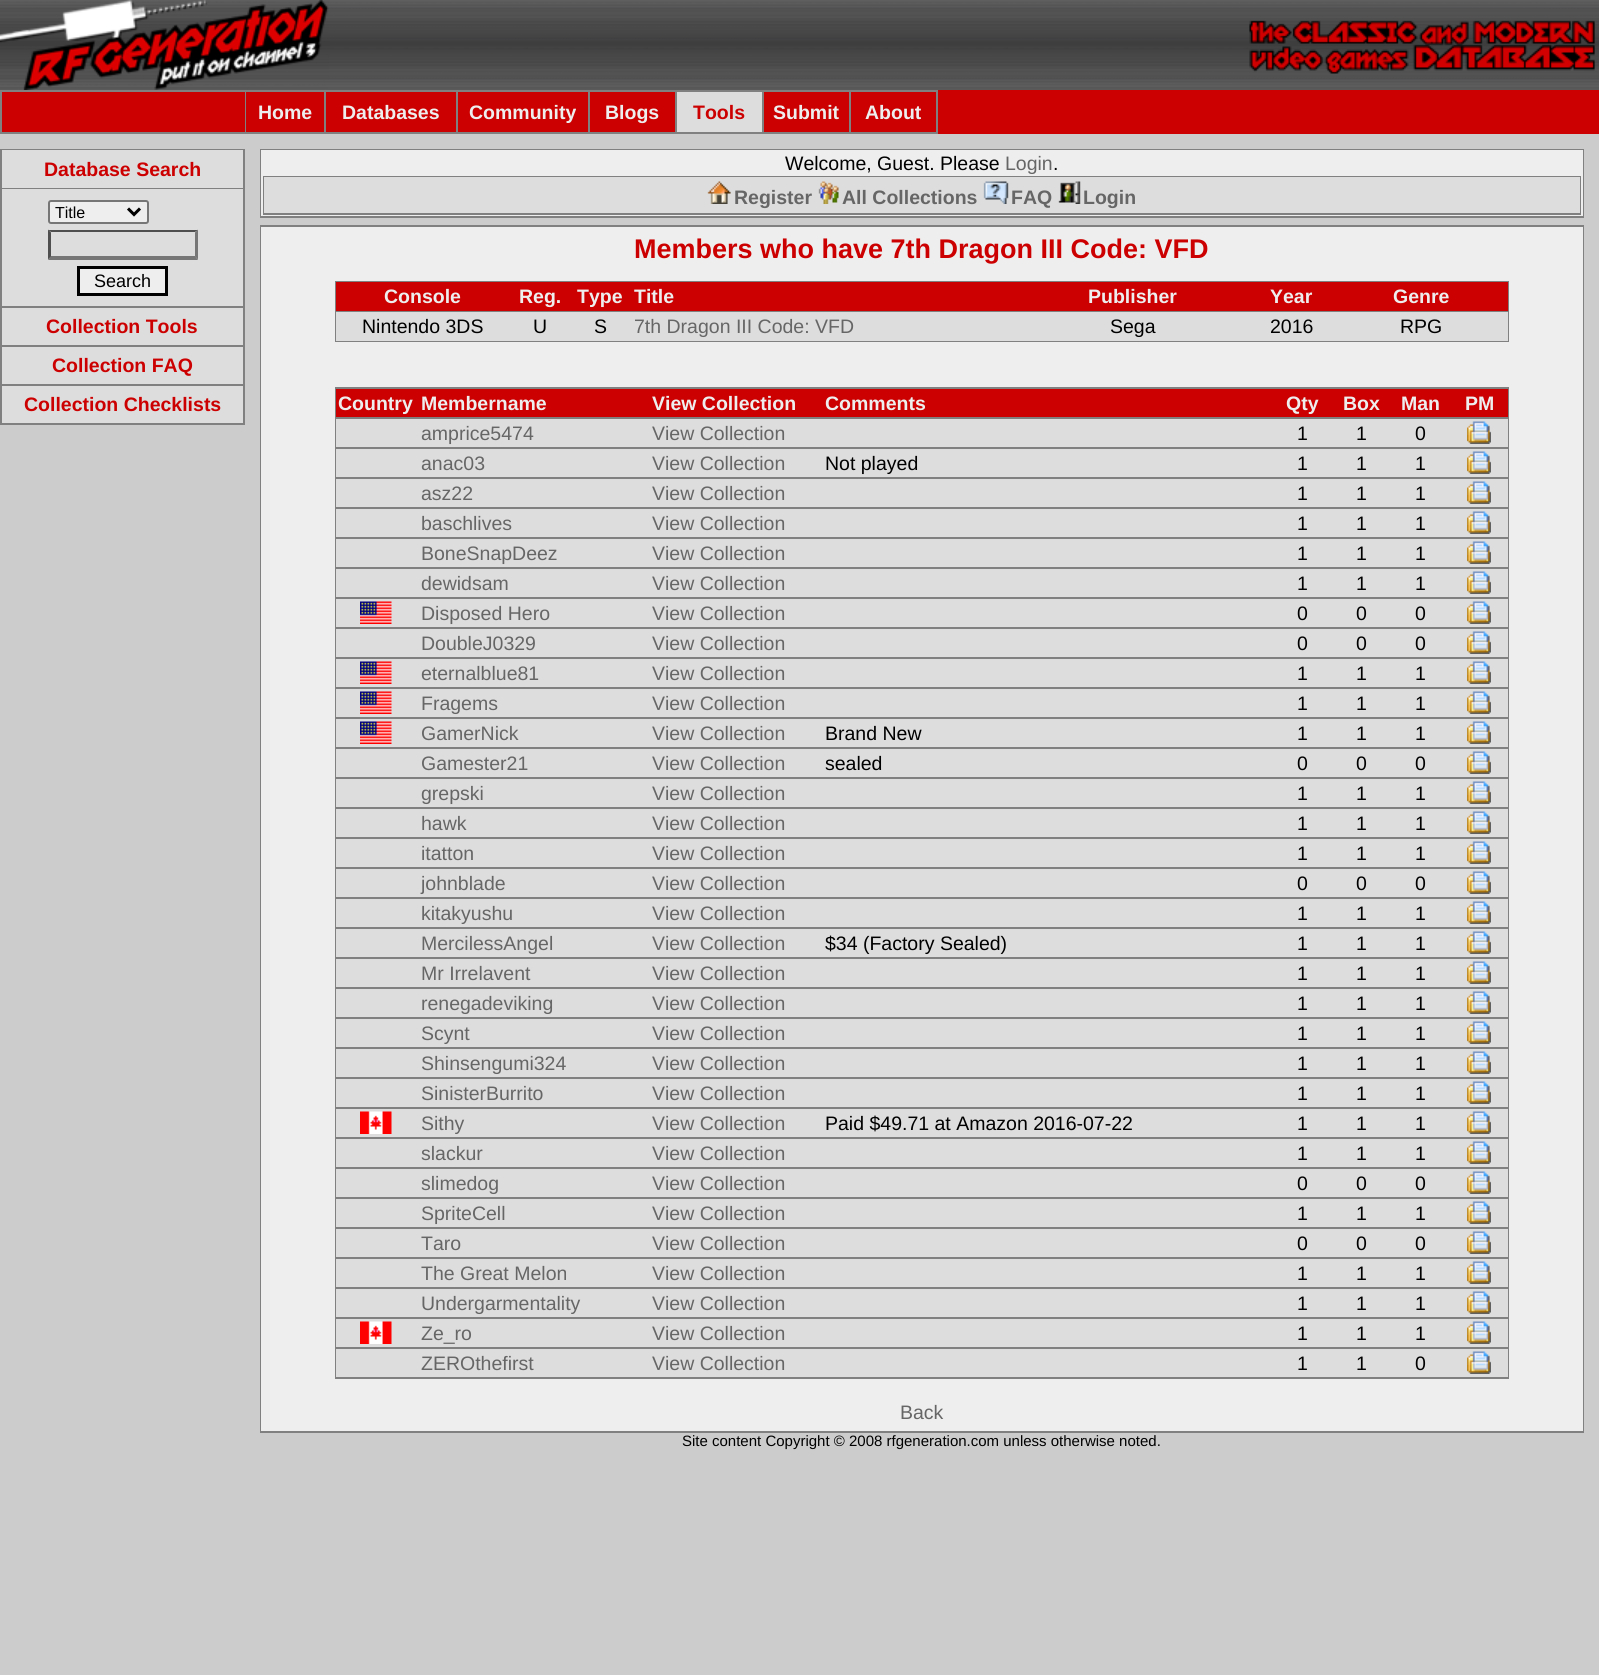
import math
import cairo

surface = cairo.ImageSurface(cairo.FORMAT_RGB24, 1599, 1675)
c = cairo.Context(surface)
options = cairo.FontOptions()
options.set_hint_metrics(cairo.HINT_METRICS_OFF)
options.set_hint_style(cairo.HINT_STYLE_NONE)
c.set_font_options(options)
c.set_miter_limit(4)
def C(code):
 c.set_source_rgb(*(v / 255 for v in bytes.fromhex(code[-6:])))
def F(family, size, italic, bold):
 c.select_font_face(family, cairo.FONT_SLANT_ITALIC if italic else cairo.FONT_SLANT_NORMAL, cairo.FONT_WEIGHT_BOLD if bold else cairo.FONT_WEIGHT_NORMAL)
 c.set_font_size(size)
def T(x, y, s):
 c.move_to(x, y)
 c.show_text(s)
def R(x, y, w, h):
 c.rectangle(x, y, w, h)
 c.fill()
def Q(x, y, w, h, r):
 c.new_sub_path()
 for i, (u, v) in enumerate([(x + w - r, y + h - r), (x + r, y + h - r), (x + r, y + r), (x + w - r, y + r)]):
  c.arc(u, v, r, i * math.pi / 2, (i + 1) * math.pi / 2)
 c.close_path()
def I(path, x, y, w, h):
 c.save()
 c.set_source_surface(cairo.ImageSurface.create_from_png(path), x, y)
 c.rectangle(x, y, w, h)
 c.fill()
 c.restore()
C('cccccc')
c.paint()
I('1.png',329,0,1270,90)
I('2.png',0,0,329,90)
I('3.png',1249,20,346,54)
C('cc0000')
R(938,90,661,44)
C('808080')
R(0,90,938,44)
C('cc0000')
R(2,92,243,40)
R(246,92,78,40)
F('Liberation Sans',19.5,0,1)
C('eeeeee')
T(258,119,'Home')
C('cc0000')
R(326,92,130,40)
C('eeeeee')
T(342,119,'Databases')
C('cc0000')
R(458,92,130,40)
C('eeeeee')
T(469,119,'Community')
C('cc0000')
R(590,92,85,40)
C('eeeeee')
T(605,119,'Blogs')
C('dddddd')
R(677,92,85,40)
C('cc0000')
T(693,119,'Tools')
R(764,92,85,40)
C('eeeeee')
T(773,119,'Submit')
C('cc0000')
R(851,92,85,40)
C('eeeeee')
T(865,119,'About')
C('808080')
R(0,149,245,276)
C('dddddd')
R(2,150,241,38)
C('cc0000')
T(44,176,'Database Search')
C('dddddd')
R(2,189,241,117)
C('eeeeee')
Q(49,201,99,22,2)
c.fill_preserve()
C('767676')
c.stroke()
c.new_path()
c.move_to(128,208.5)
c.line_to(134,214.5)
c.line_to(140,208.5)
C('000000')
c.set_line_width(3)
c.stroke()
F('Liberation Sans',16,0,0)
T(55,218,'Title')
C('4f4f4f')
c.new_path()
c.move_to(48,230)
c.line_to(198,230)
c.line_to(195,232)
c.line_to(51,232)
c.close_path()
c.fill()
C('767676')
c.new_path()
c.move_to(198,229.5)
c.line_to(198,259.5)
c.line_to(195,256.5)
c.line_to(195,232.5)
c.close_path()
c.fill()
c.new_path()
c.move_to(198,260)
c.line_to(48,260)
c.line_to(51,256)
c.line_to(195,256)
c.close_path()
c.fill()
C('4f4f4f')
c.new_path()
c.move_to(48,259.5)
c.line_to(48,229.5)
c.line_to(51,232.5)
c.line_to(51,256.5)
c.close_path()
c.fill()
C('eeeeee')
c.rectangle(78.5,267.5,88,27)
c.fill_preserve()
C('000000')
c.stroke()
F('Liberation Sans',18,0,0)
T(94,287,'Search')
C('dddddd')
R(2,308,241,37)
F('Liberation Sans',19.5,0,1)
C('cc0000')
T(46,333,'Collection Tools')
C('dddddd')
R(2,347,241,37)
C('cc0000')
T(52,372,'Collection FAQ')
C('dddddd')
R(2,386,241,37)
C('cc0000')
T(24,411,'Collection Checklists')
C('808080')
R(260,149,1324,69)
C('eeeeee')
R(261,150,1322,66)
F('Liberation Sans',19.5,0,0)
C('000000')
T(785,170,'Welcome, Guest. Please')
C('666666')
T(1005,170,'Login')
C('000000')
T(1053,170,'.')
C('808080')
R(263,176,1318,39)
C('dddddd')
R(264,177,1316,36)
I('4.png',707,181,24,23)
F('Liberation Sans',19.5,0,1)
C('666666')
T(734,204,'Register')
I('5.png',818,181,21,23)
T(842,204,'All Collections')
I('6.png',983,181,26,23)
T(1011,204,'FAQ')
I('7.png',1058,181,23,23)
T(1083,204,'Login')
C('808080')
R(260,225,1324,1208)
C('eeeeee')
R(261,227,1322,1204)
F('Liberation Sans',27,0,1)
C('cc0000')
T(634,258,'Members who have 7th Dragon III Code: VFD')
C('808080')
R(335,281,1174,61)
C('cc0000')
R(336,282,1172,29)
F('Liberation Sans',19.5,0,1)
C('eeeeee')
T(384,303,'Console')
T(519,303,'Reg.')
T(577,303,'Type')
T(634,303,'Title')
T(1088,303,'Publisher')
T(1270,303,'Year')
T(1393,303,'Genre')
C('dddddd')
R(336,312,1172,29)
F('Liberation Sans',19.5,0,0)
C('000000')
T(362,333,'Nintendo 3DS')
T(533,333,'U')
T(594,333,'S')
C('666666')
T(634,333,'7th Dragon III Code: VFD')
C('000000')
T(1110,333,'Sega')
T(1270,333,'2016')
T(1400,333,'RPG')
C('808080')
R(335,387,1174,992)
C('cc0000')
R(336,389,1172,28)
F('Liberation Sans',19.5,0,1)
C('eeeeee')
T(338,410,'Country')
T(421,410,'Membername')
T(652,410,'View Collection')
T(825,410,'Comments')
T(1286,410,'Qty')
T(1343,410,'Box')
T(1401,410,'Man')
T(1465,410,'PM')
C('dddddd')
R(336,419,1172,28)
F('Liberation Sans',19.5,0,0)
C('666666')
T(421,440,'amprice5474')
T(652,440,'View Collection')
C('000000')
T(1297,440,'1')
T(1356,440,'1')
T(1415,440,'0')
I('8.png',1467,421,24,23)
C('dddddd')
R(336,449,1172,28)
C('666666')
T(421,470,'anac03')
T(652,470,'View Collection')
C('000000')
T(825,470,'Not played')
T(1297,470,'1')
T(1356,470,'1')
T(1415,470,'1')
I('8.png',1467,451,24,23)
C('dddddd')
R(336,479,1172,28)
C('666666')
T(421,500,'asz22')
T(652,500,'View Collection')
C('000000')
T(1297,500,'1')
T(1356,500,'1')
T(1415,500,'1')
I('8.png',1467,481,24,23)
C('dddddd')
R(336,509,1172,28)
C('666666')
T(421,530,'baschlives')
T(652,530,'View Collection')
C('000000')
T(1297,530,'1')
T(1356,530,'1')
T(1415,530,'1')
I('8.png',1467,511,24,23)
C('dddddd')
R(336,539,1172,28)
C('666666')
T(421,560,'BoneSnapDeez')
T(652,560,'View Collection')
C('000000')
T(1297,560,'1')
T(1356,560,'1')
T(1415,560,'1')
I('8.png',1467,541,24,23)
C('dddddd')
R(336,569,1172,28)
C('666666')
T(421,590,'dewidsam')
T(652,590,'View Collection')
C('000000')
T(1297,590,'1')
T(1356,590,'1')
T(1415,590,'1')
I('8.png',1467,571,24,23)
C('dddddd')
R(336,599,1172,28)
I('9.png',360,601,32,23)
C('666666')
T(421,620,'Disposed Hero')
T(652,620,'View Collection')
C('000000')
T(1297,620,'0')
T(1356,620,'0')
T(1415,620,'0')
I('8.png',1467,601,24,23)
C('dddddd')
R(336,629,1172,28)
C('666666')
T(421,650,'DoubleJ0329')
T(652,650,'View Collection')
C('000000')
T(1297,650,'0')
T(1356,650,'0')
T(1415,650,'0')
I('8.png',1467,631,24,23)
C('dddddd')
R(336,659,1172,28)
I('9.png',360,661,32,23)
C('666666')
T(421,680,'eternalblue81')
T(652,680,'View Collection')
C('000000')
T(1297,680,'1')
T(1356,680,'1')
T(1415,680,'1')
I('8.png',1467,661,24,23)
C('dddddd')
R(336,689,1172,28)
I('9.png',360,691,32,23)
C('666666')
T(421,710,'Fragems')
T(652,710,'View Collection')
C('000000')
T(1297,710,'1')
T(1356,710,'1')
T(1415,710,'1')
I('8.png',1467,691,24,23)
C('dddddd')
R(336,719,1172,28)
I('9.png',360,721,32,23)
C('666666')
T(421,740,'GamerNick')
T(652,740,'View Collection')
C('000000')
T(825,740,'Brand New')
T(1297,740,'1')
T(1356,740,'1')
T(1415,740,'1')
I('8.png',1467,721,24,23)
C('dddddd')
R(336,749,1172,28)
C('666666')
T(421,770,'Gamester21')
T(652,770,'View Collection')
C('000000')
T(825,770,'sealed')
T(1297,770,'0')
T(1356,770,'0')
T(1415,770,'0')
I('8.png',1467,751,24,23)
C('dddddd')
R(336,779,1172,28)
C('666666')
T(421,800,'grepski')
T(652,800,'View Collection')
C('000000')
T(1297,800,'1')
T(1356,800,'1')
T(1415,800,'1')
I('8.png',1467,781,24,23)
C('dddddd')
R(336,809,1172,28)
C('666666')
T(421,830,'hawk')
T(652,830,'View Collection')
C('000000')
T(1297,830,'1')
T(1356,830,'1')
T(1415,830,'1')
I('8.png',1467,811,24,23)
C('dddddd')
R(336,839,1172,28)
C('666666')
T(421,860,'itatton')
T(652,860,'View Collection')
C('000000')
T(1297,860,'1')
T(1356,860,'1')
T(1415,860,'1')
I('8.png',1467,841,24,23)
C('dddddd')
R(336,869,1172,28)
C('666666')
T(421,890,'johnblade')
T(652,890,'View Collection')
C('000000')
T(1297,890,'0')
T(1356,890,'0')
T(1415,890,'0')
I('8.png',1467,871,24,23)
C('dddddd')
R(336,899,1172,28)
C('666666')
T(421,920,'kitakyushu')
T(652,920,'View Collection')
C('000000')
T(1297,920,'1')
T(1356,920,'1')
T(1415,920,'1')
I('8.png',1467,901,24,23)
C('dddddd')
R(336,929,1172,28)
C('666666')
T(421,950,'MercilessAngel')
T(652,950,'View Collection')
C('000000')
T(825,950,'$34 (Factory Sealed)')
T(1297,950,'1')
T(1356,950,'1')
T(1415,950,'1')
I('8.png',1467,931,24,23)
C('dddddd')
R(336,959,1172,28)
C('666666')
T(421,980,'Mr Irrelavent')
T(652,980,'View Collection')
C('000000')
T(1297,980,'1')
T(1356,980,'1')
T(1415,980,'1')
I('8.png',1467,961,24,23)
C('dddddd')
R(336,989,1172,28)
C('666666')
T(421,1010,'renegadeviking')
T(652,1010,'View Collection')
C('000000')
T(1297,1010,'1')
T(1356,1010,'1')
T(1415,1010,'1')
I('8.png',1467,991,24,23)
C('dddddd')
R(336,1019,1172,28)
C('666666')
T(421,1040,'Scynt')
T(652,1040,'View Collection')
C('000000')
T(1297,1040,'1')
T(1356,1040,'1')
T(1415,1040,'1')
I('8.png',1467,1021,24,23)
C('dddddd')
R(336,1049,1172,28)
C('666666')
T(421,1070,'Shinsengumi324')
T(652,1070,'View Collection')
C('000000')
T(1297,1070,'1')
T(1356,1070,'1')
T(1415,1070,'1')
I('8.png',1467,1051,24,23)
C('dddddd')
R(336,1079,1172,28)
C('666666')
T(421,1100,'SinisterBurrito')
T(652,1100,'View Collection')
C('000000')
T(1297,1100,'1')
T(1356,1100,'1')
T(1415,1100,'1')
I('8.png',1467,1081,24,23)
C('dddddd')
R(336,1109,1172,28)
I('10.png',360,1111,32,23)
C('666666')
T(421,1130,'Sithy')
T(652,1130,'View Collection')
C('000000')
T(825,1130,'Paid $49.71 at Amazon 2016-07-22')
T(1297,1130,'1')
T(1356,1130,'1')
T(1415,1130,'1')
I('8.png',1467,1111,24,23)
C('dddddd')
R(336,1139,1172,28)
C('666666')
T(421,1160,'slackur')
T(652,1160,'View Collection')
C('000000')
T(1297,1160,'1')
T(1356,1160,'1')
T(1415,1160,'1')
I('8.png',1467,1141,24,23)
C('dddddd')
R(336,1169,1172,28)
C('666666')
T(421,1190,'slimedog')
T(652,1190,'View Collection')
C('000000')
T(1297,1190,'0')
T(1356,1190,'0')
T(1415,1190,'0')
I('8.png',1467,1171,24,23)
C('dddddd')
R(336,1199,1172,28)
C('666666')
T(421,1220,'SpriteCell')
T(652,1220,'View Collection')
C('000000')
T(1297,1220,'1')
T(1356,1220,'1')
T(1415,1220,'1')
I('8.png',1467,1201,24,23)
C('dddddd')
R(336,1229,1172,28)
C('666666')
T(421,1250,'Taro')
T(652,1250,'View Collection')
C('000000')
T(1297,1250,'0')
T(1356,1250,'0')
T(1415,1250,'0')
I('8.png',1467,1231,24,23)
C('dddddd')
R(336,1259,1172,28)
C('666666')
T(421,1280,'The Great Melon')
T(652,1280,'View Collection')
C('000000')
T(1297,1280,'1')
T(1356,1280,'1')
T(1415,1280,'1')
I('8.png',1467,1261,24,23)
C('dddddd')
R(336,1289,1172,28)
C('666666')
T(421,1310,'Undergarmentality')
T(652,1310,'View Collection')
C('000000')
T(1297,1310,'1')
T(1356,1310,'1')
T(1415,1310,'1')
I('8.png',1467,1291,24,23)
C('dddddd')
R(336,1319,1172,28)
I('10.png',360,1321,32,23)
C('666666')
T(421,1340,'Ze_ro')
T(652,1340,'View Collection')
C('000000')
T(1297,1340,'1')
T(1356,1340,'1')
T(1415,1340,'1')
I('8.png',1467,1321,24,23)
C('dddddd')
R(336,1349,1172,28)
C('666666')
T(421,1370,'ZEROthefirst')
T(652,1370,'View Collection')
C('000000')
T(1297,1370,'1')
T(1356,1370,'1')
T(1415,1370,'0')
I('8.png',1467,1351,24,23)
C('666666')
T(900,1419,'Back')
F('Liberation Sans',15,0,0)
C('000000')
T(682,1446,'Site content Copyright © 2008 rfgeneration.com unless otherwise noted.')
surface.write_to_png('o.png')
